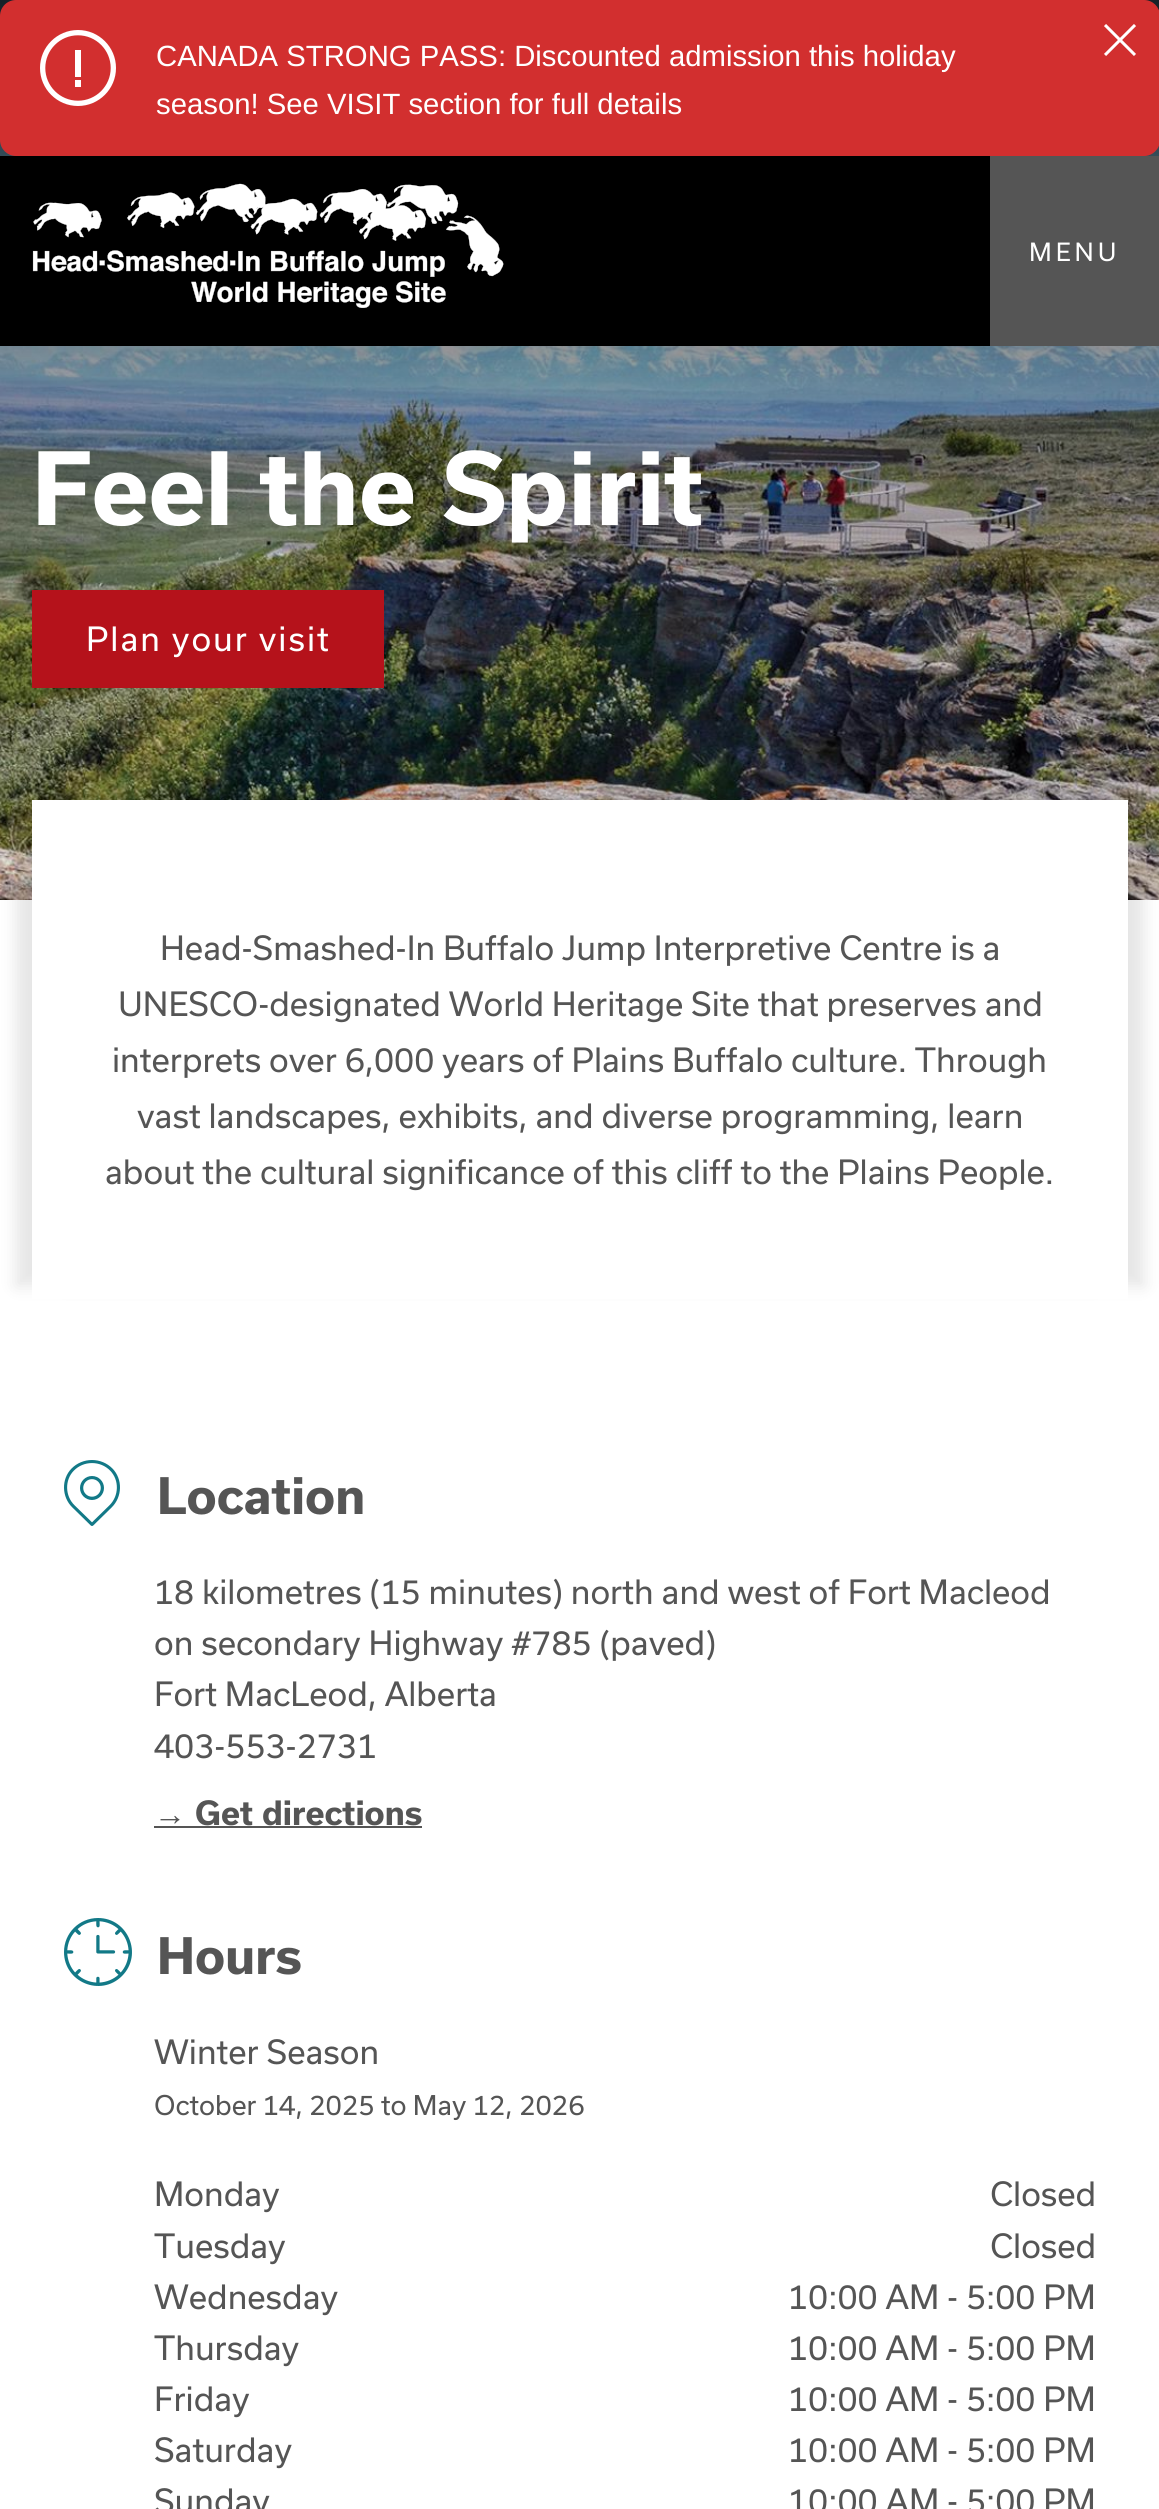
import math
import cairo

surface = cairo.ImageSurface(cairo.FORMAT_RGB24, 1159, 2509)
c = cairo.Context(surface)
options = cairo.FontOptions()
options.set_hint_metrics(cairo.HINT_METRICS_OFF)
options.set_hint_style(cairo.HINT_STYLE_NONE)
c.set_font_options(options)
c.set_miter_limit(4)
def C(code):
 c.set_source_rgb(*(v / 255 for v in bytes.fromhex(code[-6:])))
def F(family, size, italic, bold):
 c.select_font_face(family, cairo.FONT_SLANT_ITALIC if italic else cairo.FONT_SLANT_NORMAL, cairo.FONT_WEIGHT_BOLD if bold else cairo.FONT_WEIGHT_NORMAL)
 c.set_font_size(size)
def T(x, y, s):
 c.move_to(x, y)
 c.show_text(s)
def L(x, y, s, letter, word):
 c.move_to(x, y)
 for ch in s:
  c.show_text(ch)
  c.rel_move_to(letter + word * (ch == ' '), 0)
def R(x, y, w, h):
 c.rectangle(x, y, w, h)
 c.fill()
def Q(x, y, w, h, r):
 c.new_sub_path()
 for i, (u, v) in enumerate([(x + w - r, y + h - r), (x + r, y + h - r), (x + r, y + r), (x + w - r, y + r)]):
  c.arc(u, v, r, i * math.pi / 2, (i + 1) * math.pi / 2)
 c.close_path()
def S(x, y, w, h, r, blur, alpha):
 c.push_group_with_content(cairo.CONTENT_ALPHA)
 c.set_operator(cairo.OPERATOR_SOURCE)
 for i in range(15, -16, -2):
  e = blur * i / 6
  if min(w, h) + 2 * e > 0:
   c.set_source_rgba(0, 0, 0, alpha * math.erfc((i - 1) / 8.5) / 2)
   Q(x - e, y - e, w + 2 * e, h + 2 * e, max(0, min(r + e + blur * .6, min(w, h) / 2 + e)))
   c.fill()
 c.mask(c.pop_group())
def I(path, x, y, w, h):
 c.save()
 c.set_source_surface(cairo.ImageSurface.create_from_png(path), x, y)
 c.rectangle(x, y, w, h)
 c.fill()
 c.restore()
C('ffffff')
c.paint()
I('3.png',0,0,1159,900)
C('d22f2f')
Q(0,0,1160,156,16)
c.fill()
I('1.png',40,30,76,76)
F('Liberation Sans',29.3,0,0)
C('ffffff')
T(156,66,'CANADA STRONG PASS: Discounted admission this holiday')
T(156,114,'season! See VISIT section for full details')
c.new_path()
c.move_to(1105,25)
c.line_to(1135,55)
c.move_to(1135,25)
c.line_to(1105,55)
c.set_line_width(3)
c.stroke()
C('000000')
R(0,156,990,190)
I('2.png',32,183,472,125)
C('555555')
R(990,156,169,190)
F('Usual',24,0,0)
C('ffffff')
L(1029,261,'MENU',4,0)
F('Usual',96,0,1)
T(32,525,'Feel the Spirit')
C('b5121b')
R(32,590,352,98)
F('Usual',32,0,0)
C('ffffff')
L(86,651,'Plan your visit',2,0)
C('000000')
S(16,802,1080,484,0,8,.1)
S(64,802,1080,484,0,8,.1)
C('ffffff')
R(32,800,1096,499)
C('555555')
T(160,960,'Head-Smashed-In Buffalo Jump Interpretive Centre is a')
T(118,1016,'UNESCO-designated World Heritage Site that preserves and')
T(112,1072,'interprets over 6,000 years of Plains Buffalo culture. Through')
T(137,1128,'vast landscapes, exhibits, and diverse programming, learn')
T(105,1184,'about the cultural significance of this cliff to the Plains People.')
I('4.png',64,1460,56,66)
F('Usual',48,0,1)
T(157,1514,'Location')
F('Usual',32,0,0)
T(154,1604,'18 kilometres (15 minutes) north and west of Fort Macleod')
T(154,1655,'on secondary Highway #785 (paved)')
T(154,1706,'Fort MacLeod, Alberta')
T(154,1758,'403-553-2731')
F('Liberation Sans',32,0,1)
T(154,1825,'→')
R(154,1826,268,2)
F('Usual',32,0,1)
T(195,1825,'Get directions')
I('5.png',64,1918,68,68)
F('Usual',48,0,1)
T(157,1974,'Hours')
F('Usual',32,0,0)
T(154,2064,'Winter Season')
F('Usual',26,0,0)
T(154,2115,'October 14, 2025 to May 12, 2026')
F('Usual',32,0,0)
T(154,2206,'Monday')
T(990,2206,'Closed')
T(154,2258,'Tuesday')
T(990,2258,'Closed')
T(154,2309,'Wednesday')
T(788,2309,'10:00 AM - 5:00 PM')
T(154,2360,'Thursday')
T(788,2360,'10:00 AM - 5:00 PM')
T(154,2411,'Friday')
T(788,2411,'10:00 AM - 5:00 PM')
T(154,2462,'Saturday')
T(788,2462,'10:00 AM - 5:00 PM')
T(154,2513,'Sunday')
T(788,2513,'10:00 AM - 5:00 PM')
surface.write_to_png('o.png')
